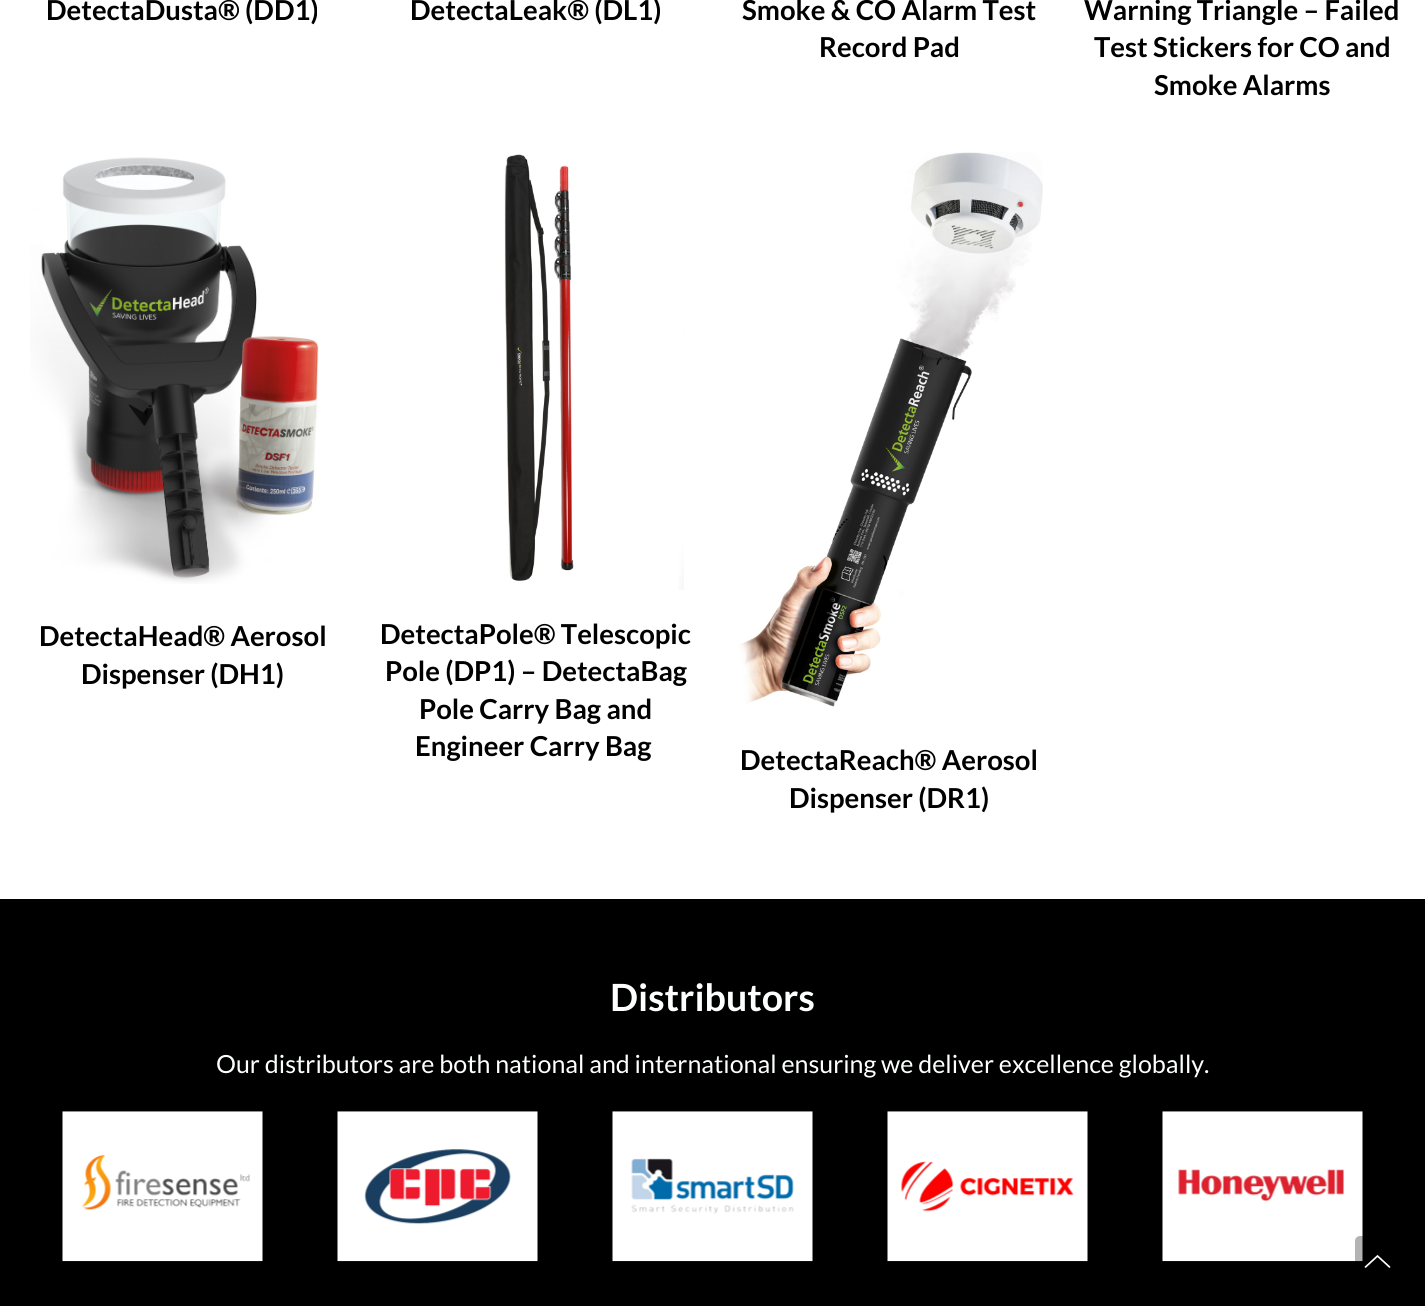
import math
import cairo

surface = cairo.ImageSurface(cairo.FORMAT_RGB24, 1425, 1306)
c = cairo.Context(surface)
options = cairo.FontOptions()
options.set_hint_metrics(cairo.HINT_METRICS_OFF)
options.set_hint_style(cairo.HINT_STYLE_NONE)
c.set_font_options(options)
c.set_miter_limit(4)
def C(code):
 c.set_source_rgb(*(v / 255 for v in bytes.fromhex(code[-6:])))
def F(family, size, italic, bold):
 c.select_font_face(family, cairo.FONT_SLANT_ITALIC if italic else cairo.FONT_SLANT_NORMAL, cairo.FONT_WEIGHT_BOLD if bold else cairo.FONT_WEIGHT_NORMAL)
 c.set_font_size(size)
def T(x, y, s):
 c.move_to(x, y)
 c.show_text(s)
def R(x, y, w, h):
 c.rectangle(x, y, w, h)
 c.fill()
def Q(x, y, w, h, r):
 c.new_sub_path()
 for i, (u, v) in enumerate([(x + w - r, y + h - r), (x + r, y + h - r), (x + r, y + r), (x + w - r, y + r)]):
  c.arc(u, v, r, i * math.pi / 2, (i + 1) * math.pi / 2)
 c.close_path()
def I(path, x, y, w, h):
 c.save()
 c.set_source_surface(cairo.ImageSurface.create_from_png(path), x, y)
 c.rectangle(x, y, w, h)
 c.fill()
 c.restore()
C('ffffff')
c.paint()
F('Lato',27.5,0,1)
C('000000')
T(46,20,'DetectaDusta® (DD1)')
T(410,20,'DetectaLeak® (DL1)')
T(742,20,'Smoke & CO Alarm Test')
T(819,57,'Record Pad')
T(1084,20,'Warning Triangle – Failed')
T(1094,57,'Test Stickers for CO and')
T(1154,95,'Smoke Alarms')
I('1.png',30,157,289,427)
T(39,646,'DetectaHead® Aerosol')
T(81,684,'Dispenser (DH1)')
I('2.png',504,154,180,436)
T(380,644,'DetectaPole® Telescopic')
T(385,681,'Pole (DP1) – DetectaBag')
T(419,719,'Pole Carry Bag and')
T(415,756,'Engineer Carry Bag')
I('3.png',739,152,304,555)
T(740,770,'DetectaReach® Aerosol')
T(789,808,'Dispenser (DR1)')
R(0,899,1425,407)
F('Lato',37.5,0,1)
C('feffff')
T(610,1011,'Distributors')
F('Lato',25,0,0)
T(216,1073,'Our distributors are both national and international ensuring we deliver excellence globally.')
I('4.png',62,1111,201,151)
I('5.png',337,1111,201,151)
I('6.png',612,1111,201,151)
I('7.png',887,1111,201,151)
I('8.png',1162,1111,201,151)
c.set_source_rgba(0,0,0,0.3)
Q(1355,1236,45,45,5)
c.fill()
c.new_path()
c.move_to(1389.5,1267)
c.line_to(1377.5,1256)
c.line_to(1365.5,1267)
C('ffffff')
c.set_line_width(1.7)
c.set_line_cap(cairo.LINE_CAP_ROUND)
c.stroke()
surface.write_to_png('o.png')
